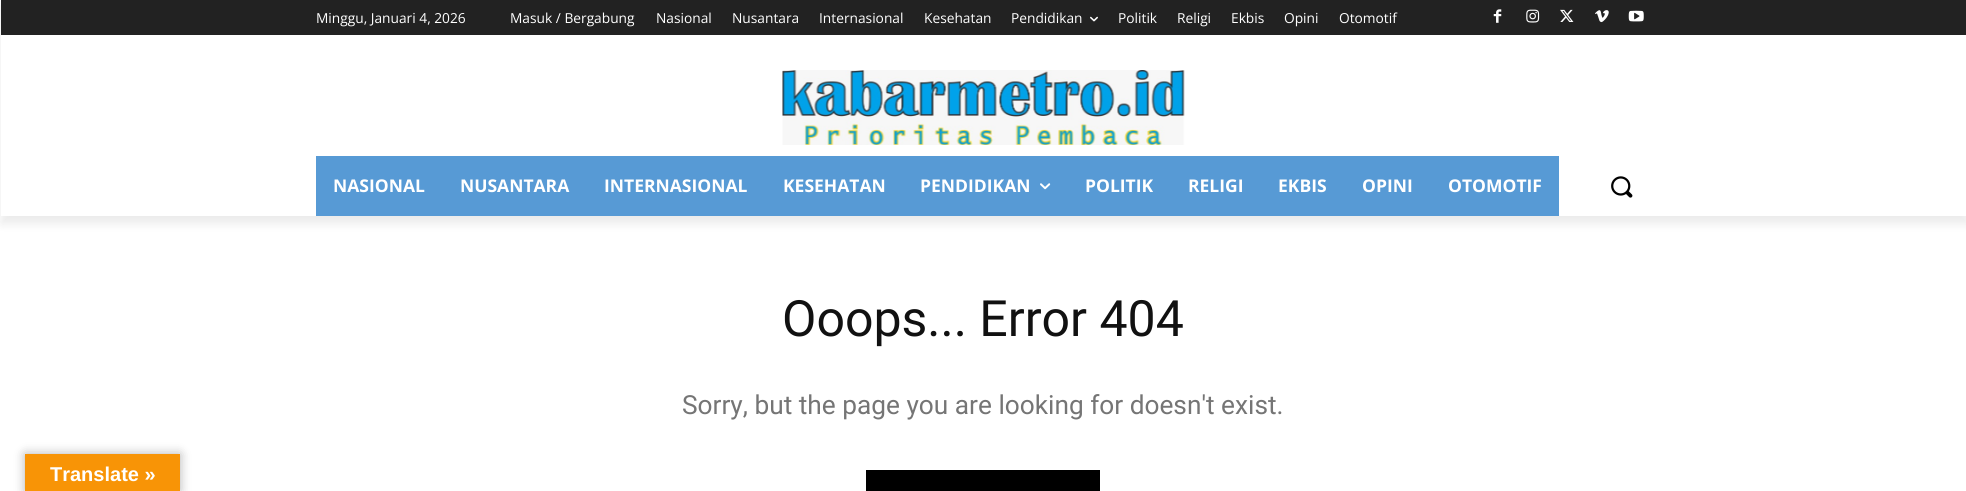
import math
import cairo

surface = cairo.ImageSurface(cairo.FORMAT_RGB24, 1966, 491)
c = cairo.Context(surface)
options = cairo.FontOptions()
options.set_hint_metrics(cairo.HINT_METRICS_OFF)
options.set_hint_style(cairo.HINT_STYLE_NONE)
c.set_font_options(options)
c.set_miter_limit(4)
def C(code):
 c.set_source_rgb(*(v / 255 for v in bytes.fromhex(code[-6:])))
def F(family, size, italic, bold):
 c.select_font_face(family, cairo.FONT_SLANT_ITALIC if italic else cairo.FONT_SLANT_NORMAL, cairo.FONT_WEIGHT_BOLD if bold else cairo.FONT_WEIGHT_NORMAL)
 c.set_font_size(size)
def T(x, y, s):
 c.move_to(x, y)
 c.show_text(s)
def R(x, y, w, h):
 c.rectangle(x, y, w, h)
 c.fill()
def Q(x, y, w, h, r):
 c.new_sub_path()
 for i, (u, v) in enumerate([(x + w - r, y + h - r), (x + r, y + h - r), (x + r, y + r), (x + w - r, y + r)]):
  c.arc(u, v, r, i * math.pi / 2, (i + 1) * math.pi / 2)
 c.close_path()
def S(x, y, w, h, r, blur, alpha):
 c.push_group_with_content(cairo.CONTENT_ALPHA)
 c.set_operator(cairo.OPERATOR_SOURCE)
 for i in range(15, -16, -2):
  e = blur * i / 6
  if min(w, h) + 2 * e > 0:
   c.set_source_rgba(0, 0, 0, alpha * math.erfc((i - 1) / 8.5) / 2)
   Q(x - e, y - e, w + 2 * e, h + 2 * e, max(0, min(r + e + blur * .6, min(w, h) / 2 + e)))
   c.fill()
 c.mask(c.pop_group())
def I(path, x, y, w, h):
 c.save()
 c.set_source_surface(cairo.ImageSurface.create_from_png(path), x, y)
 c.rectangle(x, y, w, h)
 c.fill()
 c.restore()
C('ffffff')
c.paint()
C('222222')
R(1,0,1965,35)
I('2.png',1493,9,9,14)
I('3.png',1526,9,14,14)
I('4.png',1560,9,14,13)
I('5.png',1595,10,14,13)
I('6.png',1628,10,16,12)
I('7.png',782,70,403,75)
c.save()
c.set_fill_rule(cairo.FILL_RULE_EVEN_ODD)
c.new_path()
c.move_to(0,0)
c.line_to(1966,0)
c.line_to(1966,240)
c.line_to(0,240)
c.close_path()
c.move_to(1,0)
c.line_to(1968,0)
c.line_to(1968,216)
c.line_to(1,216)
c.close_path()
c.clip()
C('000000')
S(1,8,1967,216,0,5,.08)
c.restore()
F('Open Sans',13.75,0,0)
C('ffffff')
T(316,23,'Minggu, Januari 4, 2026')
T(510,23,'Masuk / Bergabung')
T(656,23,'Nasional')
T(732,23,'Nusantara')
T(819,23,'Internasional')
T(924,23,'Kesehatan')
T(1011,23,'Pendidikan')
I('1.png',1090,16,8,6)
T(1118,23,'Politik')
T(1177,23,'Religi')
T(1231,23,'Ekbis')
T(1284,23,'Opini')
T(1339,23,'Otomotif')
C('579ad5')
R(316,156,1243,60)
F('Open Sans',17.5,0,1)
C('ffffff')
T(333,192,'NASIONAL')
T(460,192,'NUSANTARA')
T(604,192,'INTERNASIONAL')
T(783,192,'KESEHATAN')
T(920,192,'PENDIDIKAN')
I('8.png',1040,183,11,7)
T(1085,192,'POLITIK')
T(1188,192,'RELIGI')
T(1278,192,'EKBIS')
T(1362,192,'OPINI')
T(1448,192,'OTOMOTIF')
I('9.png',1611,176,22,22)
F('Roboto',50,0,0)
C('111111')
T(782,336,'Ooops... Error 404')
F('Roboto',26.25,0,0)
C('757575')
T(682,414,'Sorry, but the page you are looking for doesn\'t exist.')
C('000000')
R(866,470,234,21)
C('000000')
S(25,454,155,37,0,5.5,.3)
C('f89406')
R(25,454,155,37)
F('Liberation Sans',20,0,1)
C('ffffff')
T(50,481,'Translate »')
surface.write_to_png('o.png')
